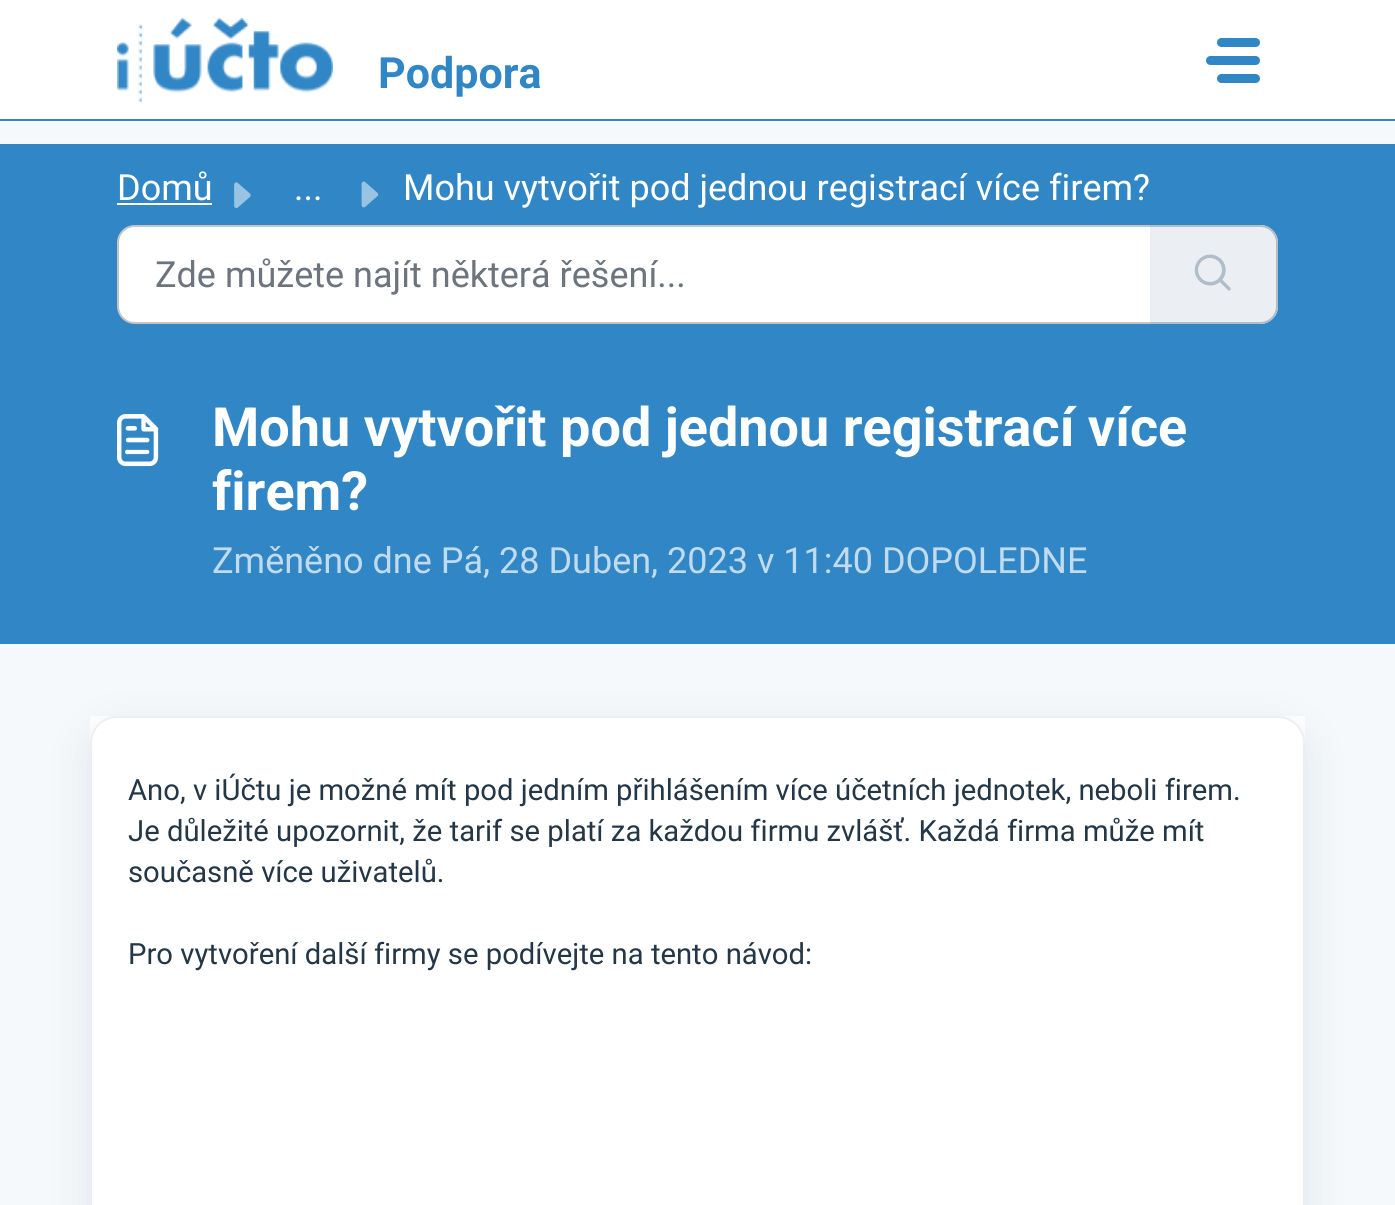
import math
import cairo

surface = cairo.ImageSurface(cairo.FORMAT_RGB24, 1395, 1205)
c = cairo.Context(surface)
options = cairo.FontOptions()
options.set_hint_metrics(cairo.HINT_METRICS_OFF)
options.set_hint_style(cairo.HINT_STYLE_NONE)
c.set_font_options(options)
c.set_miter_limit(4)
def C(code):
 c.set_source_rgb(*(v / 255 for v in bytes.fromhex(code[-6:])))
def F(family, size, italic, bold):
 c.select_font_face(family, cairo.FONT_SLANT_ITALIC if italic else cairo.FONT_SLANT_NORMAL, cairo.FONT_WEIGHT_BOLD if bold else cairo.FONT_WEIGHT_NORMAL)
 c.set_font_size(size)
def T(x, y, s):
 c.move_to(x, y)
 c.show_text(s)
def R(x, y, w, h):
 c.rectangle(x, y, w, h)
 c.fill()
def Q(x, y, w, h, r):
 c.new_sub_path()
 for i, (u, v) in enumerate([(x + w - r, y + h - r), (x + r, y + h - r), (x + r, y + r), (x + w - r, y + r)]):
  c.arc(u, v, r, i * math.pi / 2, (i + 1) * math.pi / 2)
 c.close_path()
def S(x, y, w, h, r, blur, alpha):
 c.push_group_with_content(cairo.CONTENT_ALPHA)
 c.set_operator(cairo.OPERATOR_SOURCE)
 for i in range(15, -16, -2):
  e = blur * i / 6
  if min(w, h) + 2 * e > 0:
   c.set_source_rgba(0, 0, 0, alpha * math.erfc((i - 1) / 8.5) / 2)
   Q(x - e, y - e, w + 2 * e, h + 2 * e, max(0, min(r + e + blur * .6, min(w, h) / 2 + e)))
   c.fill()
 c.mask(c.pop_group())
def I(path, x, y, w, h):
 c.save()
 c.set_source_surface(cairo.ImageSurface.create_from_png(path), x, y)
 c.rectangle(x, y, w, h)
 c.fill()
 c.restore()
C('f5f9fc')
c.paint()
C('ffffff')
R(0,0,1395,122)
C('3187c6')
R(0,119,1395,2)
I('1.png',117,18,216,84)
F('Roboto',43,0,1)
T(378,88,'Podpora')
Q(1217,38,43,9,4.5)
c.fill()
Q(1206,56,54,9,4.5)
c.fill()
Q(1217,74,43,9,4.5)
c.fill()
R(0,144,1395,500)
F('Roboto',36,0,0)
C('ffffff')
T(117,200,'Domů')
R(117,203,95,2)
I('2.png',234,182,17,27)
T(294,200,'...')
I('3.png',361,181,18,27)
T(403,200,'Mohu vytvořit pod jednou registrací více firem?')
c.new_path()
c.move_to(135,226)
c.line_to(1151,226)
c.line_to(1151,323)
c.line_to(135,323)
c.curve_to(125.5,323,118,315.5,118,306)
c.line_to(118,243)
c.curve_to(118,233.5,125.5,226,135,226)
c.close_path()
c.fill_preserve()
C('c5c5c5')
c.stroke()
C('6c757d')
T(155,287,'Zde můžete najít některá řešení...')
C('ebeff3')
c.new_path()
c.move_to(1150,225)
c.line_to(1260,225)
c.curve_to(1270,225,1278,233,1278,243)
c.line_to(1278,306)
c.curve_to(1278,316,1270,324,1260,324)
c.line_to(1150,324)
c.close_path()
c.fill()
C('b1bdc8')
c.set_fill_rule(cairo.FILL_RULE_EVEN_ODD)
c.new_path()
c.move_to(1150,225)
c.line_to(1260,225)
c.curve_to(1270,225,1278,233,1278,243)
c.line_to(1278,306)
c.curve_to(1278,316,1270,324,1260,324)
c.line_to(1150,324)
c.close_path()
c.move_to(1150,227)
c.line_to(1260,227)
c.curve_to(1269,227,1276,234,1276,243)
c.line_to(1276,306)
c.curve_to(1276,315,1269,322,1260,322)
c.line_to(1150,322)
c.close_path()
c.fill()
I('4.png',1194,254,37,37)
I('5.png',117,414,42,53)
F('Roboto',54,0,1)
C('ffffff')
T(212,446,'Mohu vytvořit pod jednou registrací více')
T(212,510,'firem?')
F('Roboto',36,0,0)
C('c1dbee')
T(212,573,'Změněno dne Pá, 28 Duben, 2023 v 11:40 DOPOLEDNE')
C('ffffff')
R(90,716,1215,489)
c.save()
c.new_path()
c.move_to(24,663)
c.line_to(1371,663)
c.line_to(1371,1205)
c.line_to(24,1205)
c.close_path()
c.move_to(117,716)
c.line_to(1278,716)
c.curve_to(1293,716,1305,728,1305,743)
c.line_to(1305,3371)
c.curve_to(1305,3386,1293,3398,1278,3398)
c.line_to(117,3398)
c.curve_to(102,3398,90,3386,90,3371)
c.line_to(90,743)
c.curve_to(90,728,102,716,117,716)
c.close_path()
c.clip()
C('27313a')
S(90,729,1215,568,27,21.5,.1)
c.restore()
Q(91,717,1213,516,26)
C('ebeff3')
c.stroke()
F('Roboto',29.25,0,0)
C('233746')
T(128,800,'Ano, v iÚčtu je možné mít pod jedním přihlášením více účetních jednotek, neboli firem.')
T(128,841,'Je důležité upozornit, že tarif se platí za každou firmu zvlášť. Každá firma může mít')
T(128,882,'současně více uživatelů.')
T(128,964,'Pro vytvoření další firmy se podívejte na tento návod:')
surface.write_to_png('o.png')
